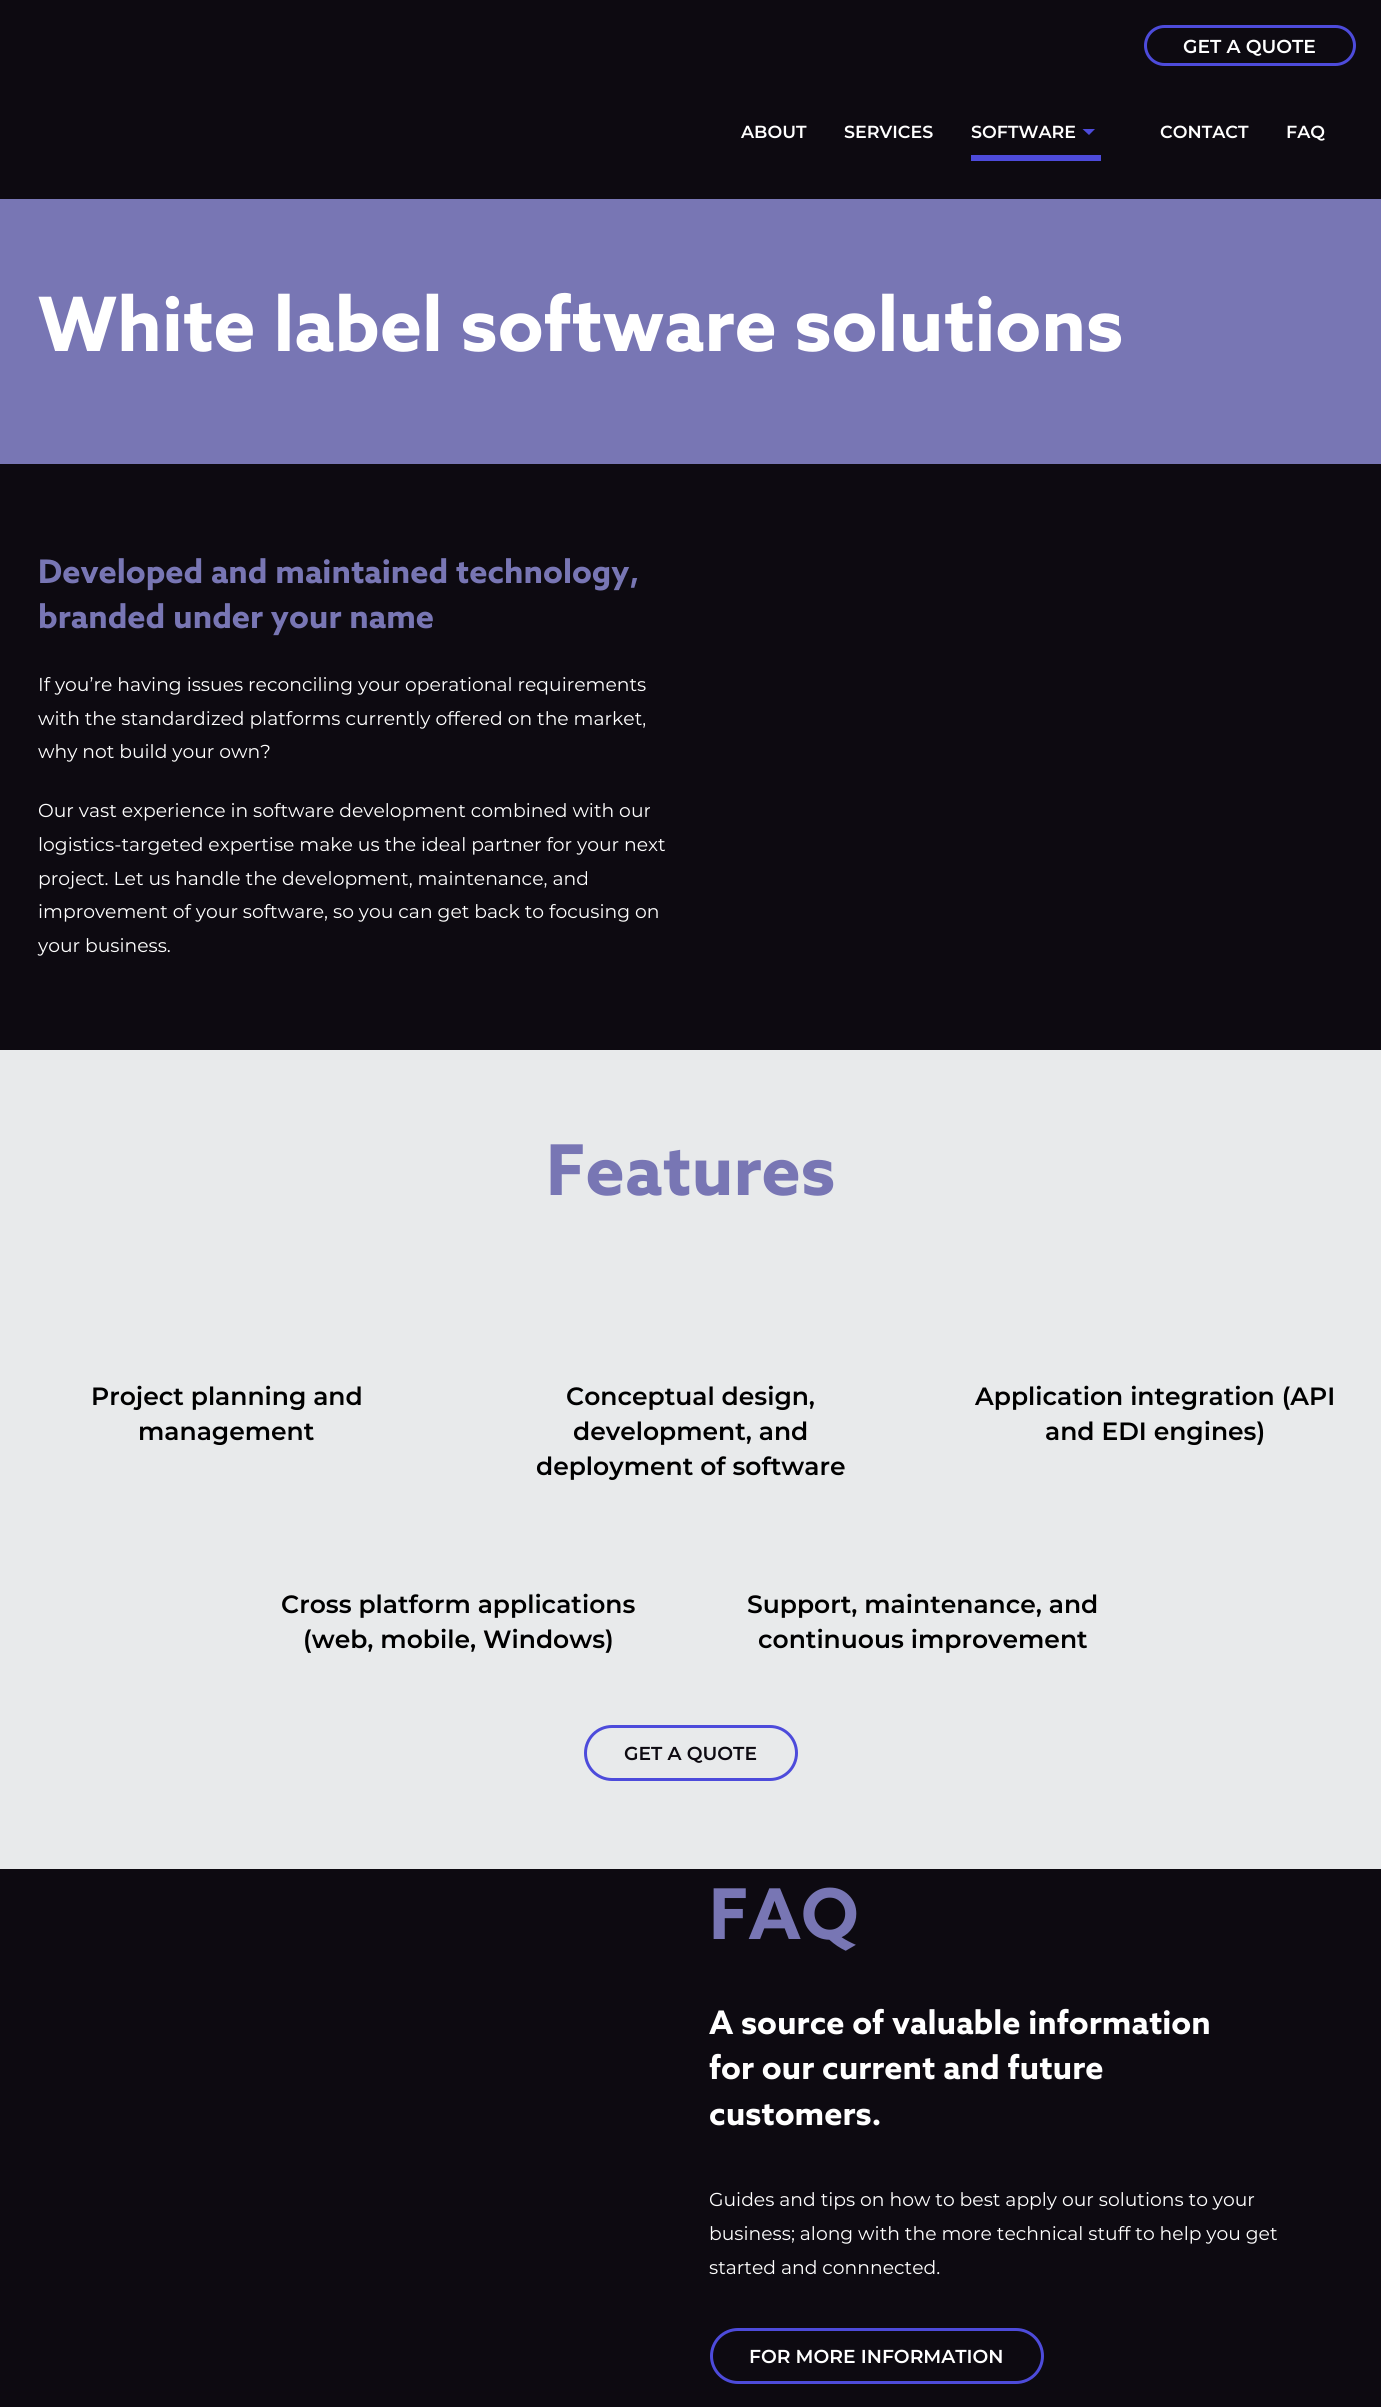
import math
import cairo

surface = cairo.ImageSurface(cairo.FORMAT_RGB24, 1381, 2407)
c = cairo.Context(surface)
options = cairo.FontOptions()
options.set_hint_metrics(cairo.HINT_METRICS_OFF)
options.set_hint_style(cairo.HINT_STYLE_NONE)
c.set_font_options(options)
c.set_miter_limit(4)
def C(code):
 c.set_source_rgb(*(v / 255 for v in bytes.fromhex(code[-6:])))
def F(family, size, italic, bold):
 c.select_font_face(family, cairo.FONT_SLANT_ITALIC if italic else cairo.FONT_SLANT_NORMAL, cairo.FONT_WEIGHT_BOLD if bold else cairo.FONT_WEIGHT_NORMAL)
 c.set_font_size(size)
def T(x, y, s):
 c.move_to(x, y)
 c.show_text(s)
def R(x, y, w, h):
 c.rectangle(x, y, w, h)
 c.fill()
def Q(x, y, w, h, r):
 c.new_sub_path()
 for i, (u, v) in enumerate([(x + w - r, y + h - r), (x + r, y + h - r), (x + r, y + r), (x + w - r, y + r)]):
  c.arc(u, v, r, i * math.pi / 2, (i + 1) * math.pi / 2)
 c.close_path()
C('0d0a11')
c.paint()
Q(1145.5,26.5,209,38,19)
C('4d4bdb')
c.set_line_width(3)
c.stroke()
F('Montserrat SemiBold',18.75,0,0)
C('ffffff')
T(1183,53,'GET A QUOTE')
F('Montserrat SemiBold',17.5,0,0)
T(741,138,'ABOUT')
T(844,138,'SERVICES')
C('4d4bdb')
c.new_path()
c.move_to(1082.5,129)
c.line_to(1095,129)
c.line_to(1089,135)
c.close_path()
c.fill()
C('ffffff')
T(971,138,'SOFTWARE')
C('4d4bdb')
R(971,155,130,6)
C('ffffff')
T(1160,138,'CONTACT')
T(1286,138,'FAQ')
C('7876b4')
R(0,199,1381,265)
F('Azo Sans',75,0,1)
C('ffffff')
T(38,351,'White label software solutions')
F('Azo Sans',32.5,0,1)
C('7876b4')
T(38,583,'Developed and maintained technology,')
T(38,628,'branded under your name')
F('Montserrat',18.75,0,0)
C('ffffff')
T(38,691,'If you’re having issues reconciling your operational requirements')
T(38,725,'with the standardized platforms currently offered on the market,')
T(38,758,'why not build your own?')
T(38,817,'Our vast experience in software development combined with our')
T(38,851,'logistics-targeted expertise make us the ideal partner for your next')
T(38,885,'project. Let us handle the development, maintenance, and')
T(38,918,'improvement of your software, so you can get back to focusing on')
T(38,952,'your business.')
C('e8eaeb')
R(0,1050,1381,819)
F('Azo Sans',70,0,1)
C('7876b4')
T(546,1195,'Features')
F('Montserrat SemiBold',25,0,0)
C('000000')
T(91,1405,'Project planning and')
T(138,1440,'management')
T(566,1405,'Conceptual design,')
T(573,1440,'development, and')
T(536,1475,'deployment of software')
T(975,1405,'Application integration (API')
T(1045,1440,'and EDI engines)')
T(281,1613,'Cross platform applications')
T(303,1648,'(web, mobile, Windows)')
T(747,1613,'Support, maintenance, and')
T(758,1648,'continuous improvement')
Q(585.5,1726.5,211,53,26.5)
C('4d4bdb')
c.stroke()
F('Montserrat SemiBold',18.75,0,0)
C('0d0a11')
T(624,1760,'GET A QUOTE')
F('Azo Sans',70,0,1)
C('7876b4')
T(709,1939,'FAQ')
F('Azo Sans',32.5,0,1)
C('ffffff')
T(709,2034,'A source of valuable information')
T(709,2079,'for our current and future')
T(709,2125,'customers.')
F('Montserrat',18.75,0,0)
T(709,2206,'Guides and tips on how to best apply our solutions to your')
T(709,2240,'business; along with the more technical stuff to help you get')
T(709,2274,'started and connnected.')
Q(711.5,2329.5,331,53,26.5)
C('4d4bdb')
c.stroke()
F('Montserrat SemiBold',18.75,0,0)
C('ffffff')
T(749,2363,'FOR MORE INFORMATION')
surface.write_to_png('o.png')
